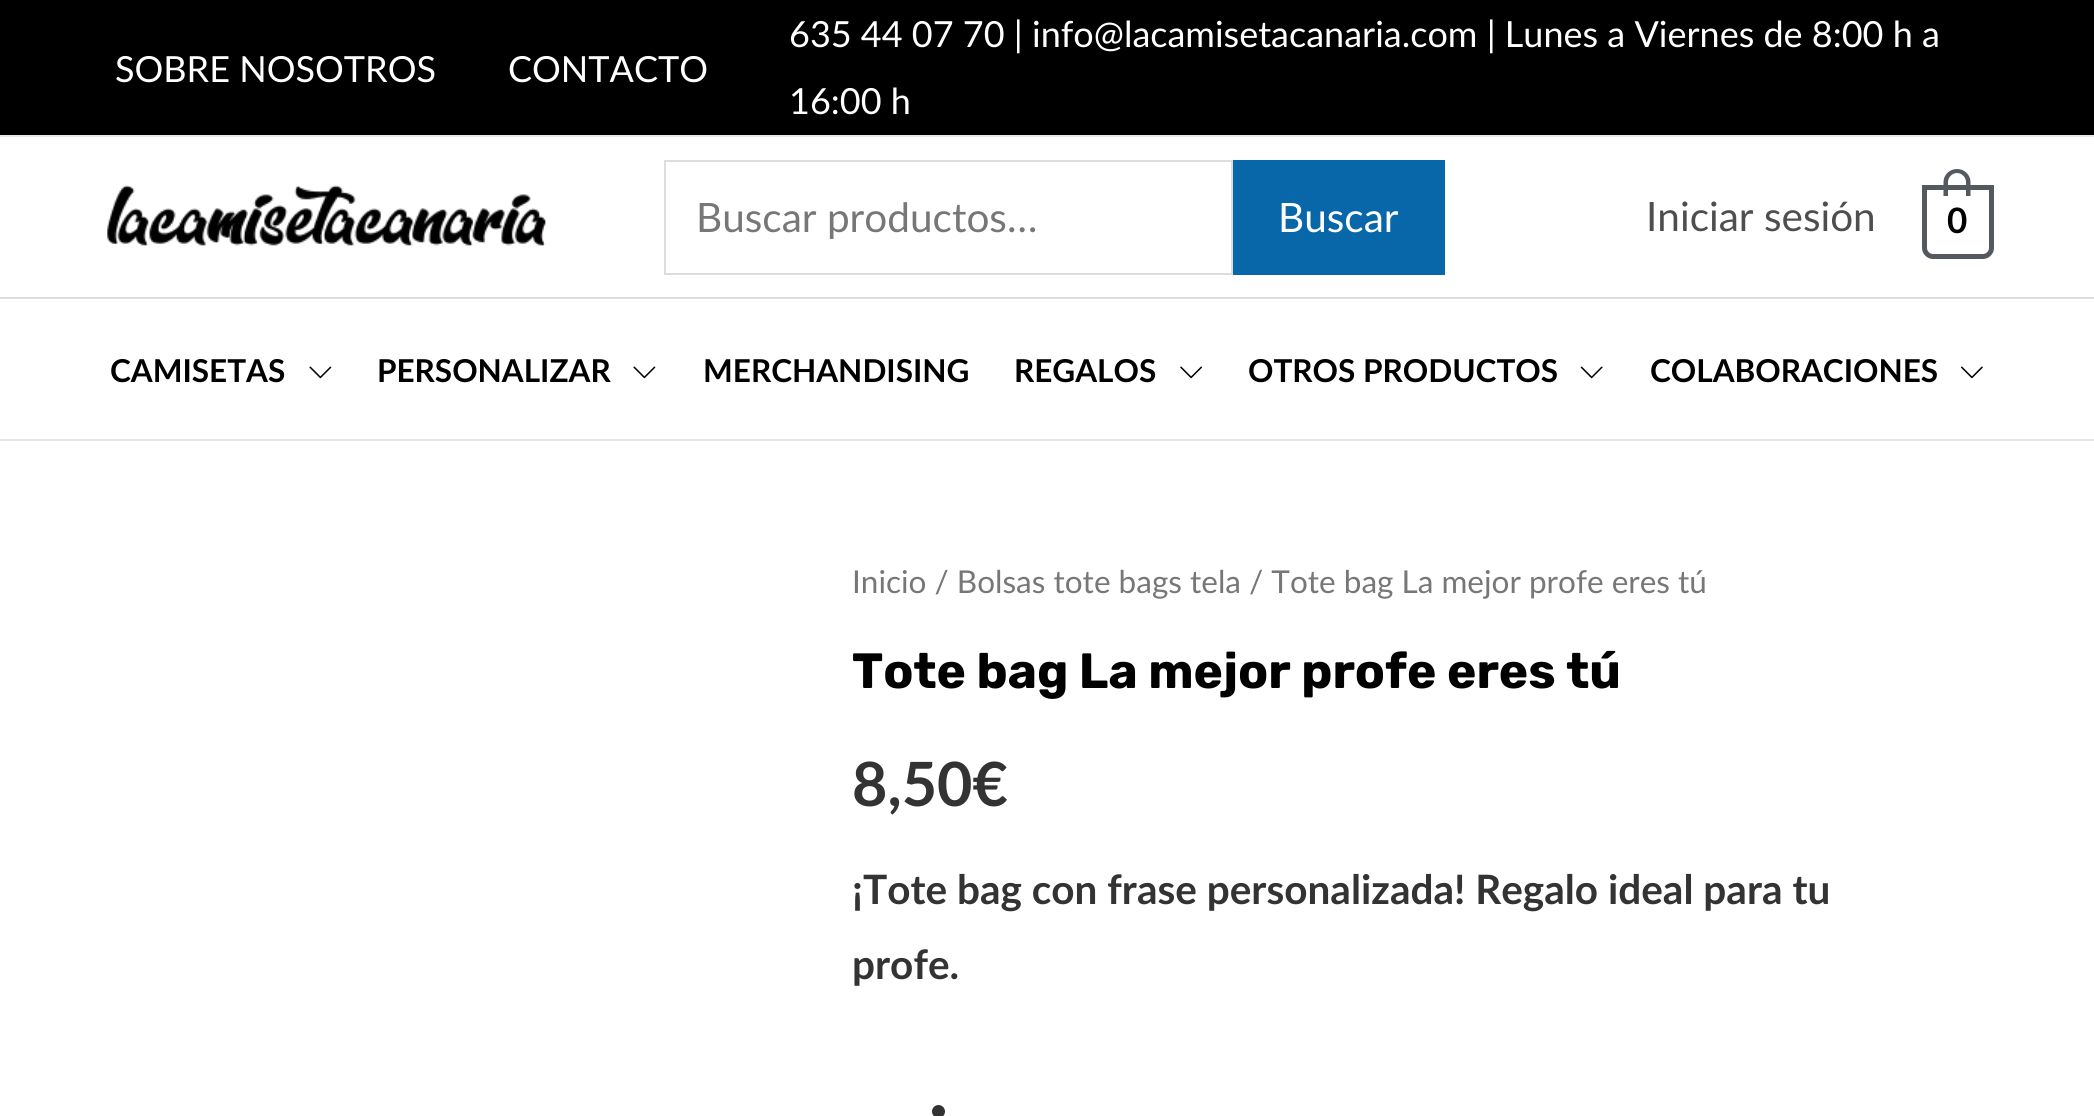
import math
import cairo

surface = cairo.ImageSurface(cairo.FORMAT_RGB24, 2094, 1116)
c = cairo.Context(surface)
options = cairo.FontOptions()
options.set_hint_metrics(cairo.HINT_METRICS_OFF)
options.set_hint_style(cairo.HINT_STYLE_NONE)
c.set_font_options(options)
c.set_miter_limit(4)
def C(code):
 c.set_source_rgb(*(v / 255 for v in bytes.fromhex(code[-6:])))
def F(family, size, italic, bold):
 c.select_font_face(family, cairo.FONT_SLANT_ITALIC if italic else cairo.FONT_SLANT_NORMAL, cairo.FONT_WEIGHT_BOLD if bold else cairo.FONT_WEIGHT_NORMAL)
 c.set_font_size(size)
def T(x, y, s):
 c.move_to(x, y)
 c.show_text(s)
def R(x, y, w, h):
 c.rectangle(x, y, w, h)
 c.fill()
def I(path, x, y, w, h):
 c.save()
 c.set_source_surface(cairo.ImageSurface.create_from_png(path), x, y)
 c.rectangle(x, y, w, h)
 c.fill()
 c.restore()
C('ffffff')
c.paint()
C('000000')
R(0,0,2094,135)
C('eaeaea')
R(0,135,2094,2)
F('Lato',36,0,0)
C('ffffff')
T(115,82,'SOBRE NOSOTROS')
T(508,82,'CONTACTO')
T(789,47,'635 44 07 70 | info@lacamisetacanaria.com | Lunes a Viernes de 8:00 h a')
T(789,114,'16:00 h')
C('dddddd')
R(0,297,2094,2)
I('1.png',106,185,440,61)
c.rectangle(665,161,567,113)
c.stroke()
F('Lato',40.5,0,0)
C('777777')
T(696,232,'Buscar productos…')
C('0867a9')
R(1233,160,212,115)
C('ffffff')
T(1278,232,'Buscar')
C('4e4e4e')
T(1646,231,'Iniciar sesión')
c.new_path()
c.move_to(1924.5,187.5)
c.line_to(1991.5,187.5)
c.line_to(1991.5,248)
c.curve_to(1991.5,252.5,1987.5,256.5,1983,256.5)
c.line_to(1933,256.5)
c.curve_to(1928.5,256.5,1924.5,252.5,1924.5,248)
c.close_path()
C('54595f')
c.set_line_width(5)
c.stroke()
c.set_fill_rule(cairo.FILL_RULE_EVEN_ODD)
c.new_path()
c.move_to(1957,169)
c.curve_to(1964.5,169,1970.5,175,1970.5,182)
c.line_to(1970.5,196)
c.line_to(1943.5,196)
c.line_to(1943.5,182)
c.curve_to(1943.5,175,1949.5,169,1957,169)
c.close_path()
c.move_to(1957,173)
c.curve_to(1962,173,1966,177.5,1966,182)
c.line_to(1966,196)
c.line_to(1948,196)
c.line_to(1948,182)
c.curve_to(1948,177.5,1952,173,1957,173)
c.close_path()
c.fill()
F('Lato',35,0,1)
C('000000')
T(1947,233,'0')
C('e5e5e5')
R(0,439,2094,2)
F('Lato',31.5,0,1)
C('000000')
T(110,382,'CAMISETAS')
I('2.png',309,366,23,13)
T(377,382,'PERSONALIZAR')
I('2.png',633,366,23,13)
T(703,382,'MERCHANDISING')
T(1014,382,'REGALOS')
I('3.png',1180,366,22,13)
T(1248,382,'OTROS PRODUCTOS')
I('4.png',1580,366,23,13)
T(1650,382,'COLABORACIONES')
I('5.png',1961,366,22,13)
F('Lato',31.5,0,0)
C('777777')
T(852,593,'Inicio / Bolsas tote bags tela / Tote bag La mejor profe eres tú')
F('Rubik',49.5,0,1)
C('000000')
T(852,688,'Tote bag La mejor profe eres tú')
F('Lato',61,0,1)
C('333333')
T(852,806,'8,50€')
F('Lato',40.5,0,1)
T(852,904,'¡Tote bag con frase personalizada! Regalo ideal para tu')
T(852,979,'profe.')
c.new_path()
c.arc(938.5,1111.5,6.5,0,2 * math.pi)
c.fill()
surface.write_to_png('o.png')
